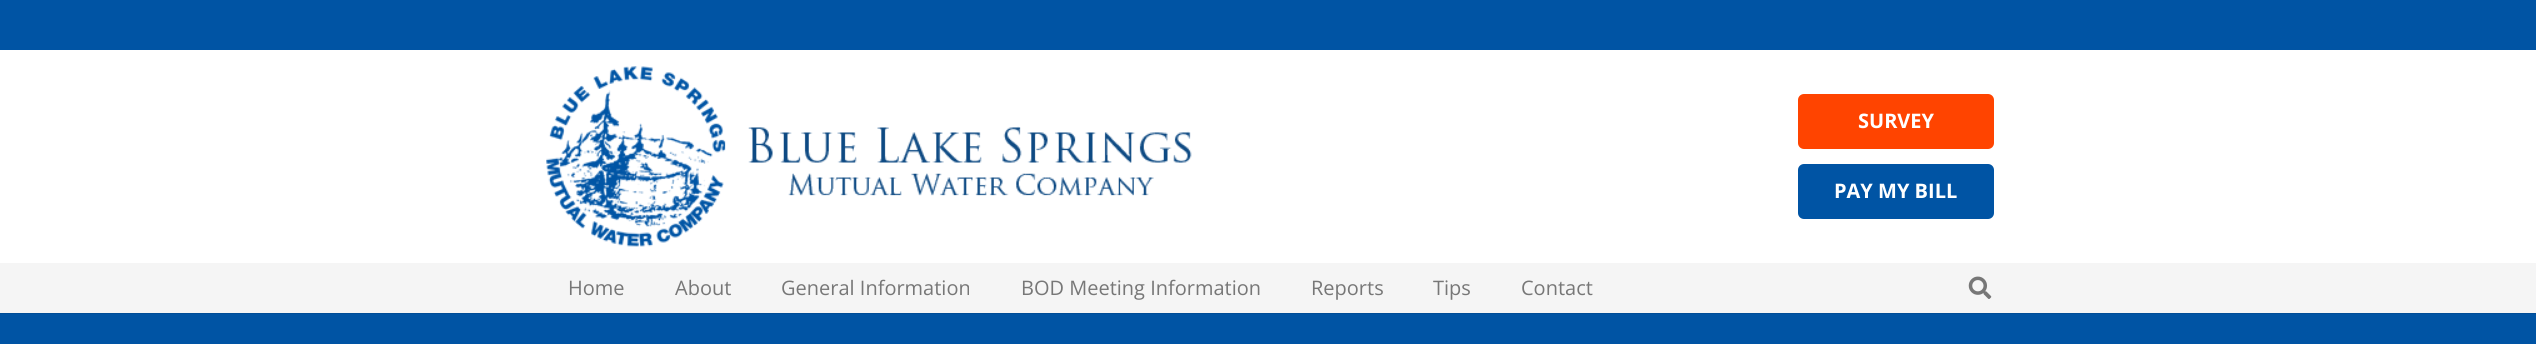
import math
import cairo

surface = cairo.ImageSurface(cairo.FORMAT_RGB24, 2536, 344)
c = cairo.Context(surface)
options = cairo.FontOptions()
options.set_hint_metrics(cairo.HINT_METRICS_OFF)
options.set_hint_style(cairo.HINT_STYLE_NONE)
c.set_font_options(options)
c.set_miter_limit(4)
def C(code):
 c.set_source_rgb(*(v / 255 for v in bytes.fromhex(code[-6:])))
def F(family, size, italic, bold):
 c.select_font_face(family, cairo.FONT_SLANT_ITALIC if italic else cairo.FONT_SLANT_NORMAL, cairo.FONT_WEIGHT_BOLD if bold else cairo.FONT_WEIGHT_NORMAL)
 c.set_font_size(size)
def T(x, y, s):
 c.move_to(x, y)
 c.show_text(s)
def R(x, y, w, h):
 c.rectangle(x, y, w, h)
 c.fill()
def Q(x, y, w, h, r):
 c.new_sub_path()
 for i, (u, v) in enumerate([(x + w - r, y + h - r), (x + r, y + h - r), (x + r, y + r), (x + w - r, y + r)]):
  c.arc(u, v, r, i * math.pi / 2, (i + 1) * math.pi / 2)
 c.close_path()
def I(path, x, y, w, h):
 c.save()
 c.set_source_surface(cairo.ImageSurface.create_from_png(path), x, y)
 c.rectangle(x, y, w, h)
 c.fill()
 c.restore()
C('0054a4')
c.paint()
C('ffffff')
R(0,50,2536,213)
I('1.png',546,66,646,181)
C('ff4400')
Q(1798,94,196,55,6)
c.fill()
F('Open Sans',20,0,1)
C('ffffff')
T(1858,128,'SURVEY')
C('0054a4')
Q(1798,164,196,55,6)
c.fill()
C('ffffff')
T(1834,198,'PAY MY BILL')
C('f5f5f5')
R(0,263,2536,50)
F('Open Sans',20,0,0)
C('777777')
T(568,295,'Home')
T(675,295,'About')
T(781,295,'General Information')
T(1021,295,'BOD Meeting Information')
T(1311,295,'Reports')
T(1433,295,'Tips')
T(1521,295,'Contact')
I('2.png',1968,276,24,23)
C('004d97')
R(0,313,2536,1)
surface.write_to_png('o.png')
